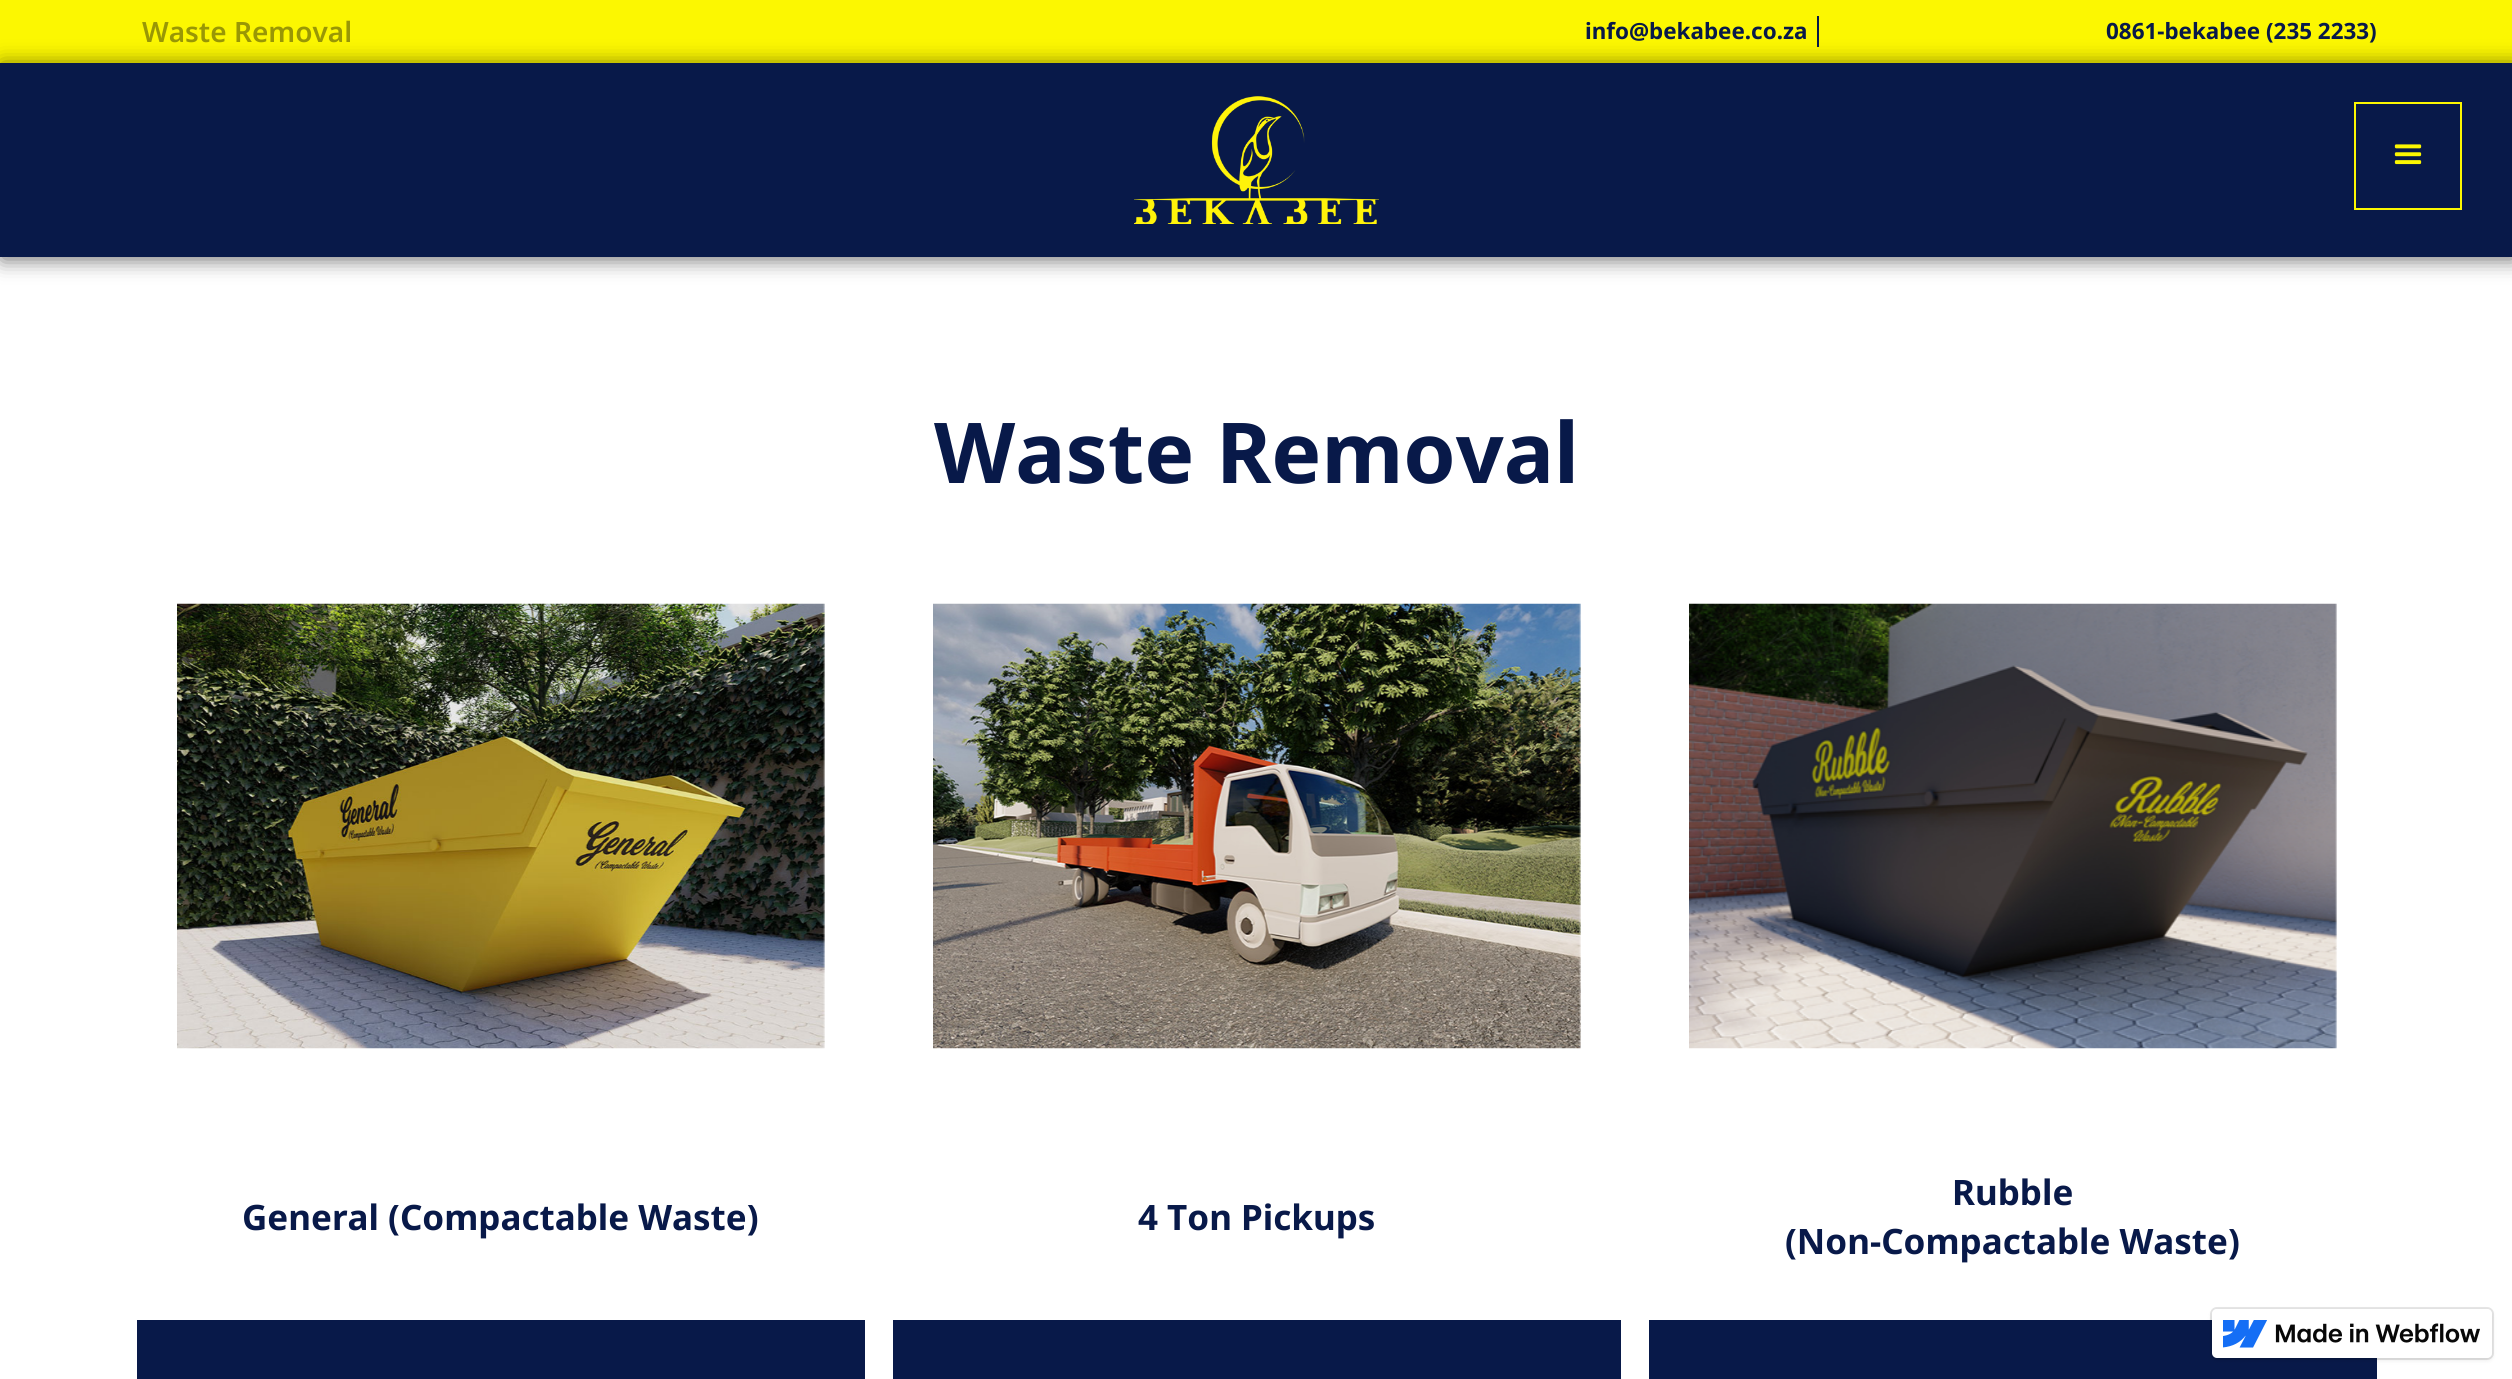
import math
import cairo

surface = cairo.ImageSurface(cairo.FORMAT_RGB24, 2512, 1379)
c = cairo.Context(surface)
options = cairo.FontOptions()
options.set_hint_metrics(cairo.HINT_METRICS_OFF)
options.set_hint_style(cairo.HINT_STYLE_NONE)
c.set_font_options(options)
c.set_miter_limit(4)
def C(code):
 c.set_source_rgb(*(v / 255 for v in bytes.fromhex(code[-6:])))
def F(family, size, italic, bold):
 c.select_font_face(family, cairo.FONT_SLANT_ITALIC if italic else cairo.FONT_SLANT_NORMAL, cairo.FONT_WEIGHT_BOLD if bold else cairo.FONT_WEIGHT_NORMAL)
 c.set_font_size(size)
def T(x, y, s):
 c.move_to(x, y)
 c.show_text(s)
def R(x, y, w, h):
 c.rectangle(x, y, w, h)
 c.fill()
def Q(x, y, w, h, r):
 c.new_sub_path()
 for i, (u, v) in enumerate([(x + w - r, y + h - r), (x + r, y + h - r), (x + r, y + r), (x + w - r, y + r)]):
  c.arc(u, v, r, i * math.pi / 2, (i + 1) * math.pi / 2)
 c.close_path()
def S(x, y, w, h, r, blur, alpha):
 c.push_group_with_content(cairo.CONTENT_ALPHA)
 c.set_operator(cairo.OPERATOR_SOURCE)
 for i in range(15, -16, -2):
  e = blur * i / 6
  if min(w, h) + 2 * e > 0:
   c.set_source_rgba(0, 0, 0, alpha * math.erfc((i - 1) / 8.5) / 2)
   Q(x - e, y - e, w + 2 * e, h + 2 * e, max(0, min(r + e + blur * .6, min(w, h) / 2 + e)))
   c.fill()
 c.mask(c.pop_group())
def I(path, x, y, w, h):
 c.save()
 c.set_source_surface(cairo.ImageSurface.create_from_png(path), x, y)
 c.rectangle(x, y, w, h)
 c.fill()
 c.restore()
C('ffffff')
c.paint()
C('fcf701')
R(0,0,2512,63)
F('Noto Sans SemiBold',28,0,0)
C('999705')
T(142,42,'Waste Removal')
C('081949')
R(1817,16,2,31)
F('Noto Sans',22.4,0,1)
T(1585,39,'info@bekabee.co.za')
T(2106,39,'0861-bekabee (235 2233)')
C('000000')
S(2,65,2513,194,0,10.5,.6)
C('081949')
R(0,63,2512,194)
I('1.png',1134,96,245,128)
c.rectangle(2355,103,106,106)
C('fcf701')
c.stroke()
I('2.png',2394,144,28,21)
F('Noto Sans',84,0,1)
C('081949')
T(934,483,'Waste Removal')
I('3.png',177,603,648,446)
F('Noto Sans',35,0,1)
T(242,1230,'General (Compactable Waste)')
R(137,1320,728,59)
I('4.png',933,603,648,446)
T(1138,1230,'4 Ton Pickups')
R(893,1320,728,59)
I('5.png',1689,603,648,446)
T(1952,1205,'Rubble')
T(1785,1254,'(Non-Compactable Waste)')
R(1649,1320,728,59)
C('000000')
S(2212,1311,280,49,5,2.5,.1)
Q(2211,1308,282,51,6)
c.set_source_rgba(0,0,0,0.1)
c.stroke()
C('ffffff')
Q(2212,1309,280,49,5)
c.fill()
I('6.png',2223,1320,44,28)
I('7.png',2275,1323,205,20)
surface.write_to_png('o.png')
